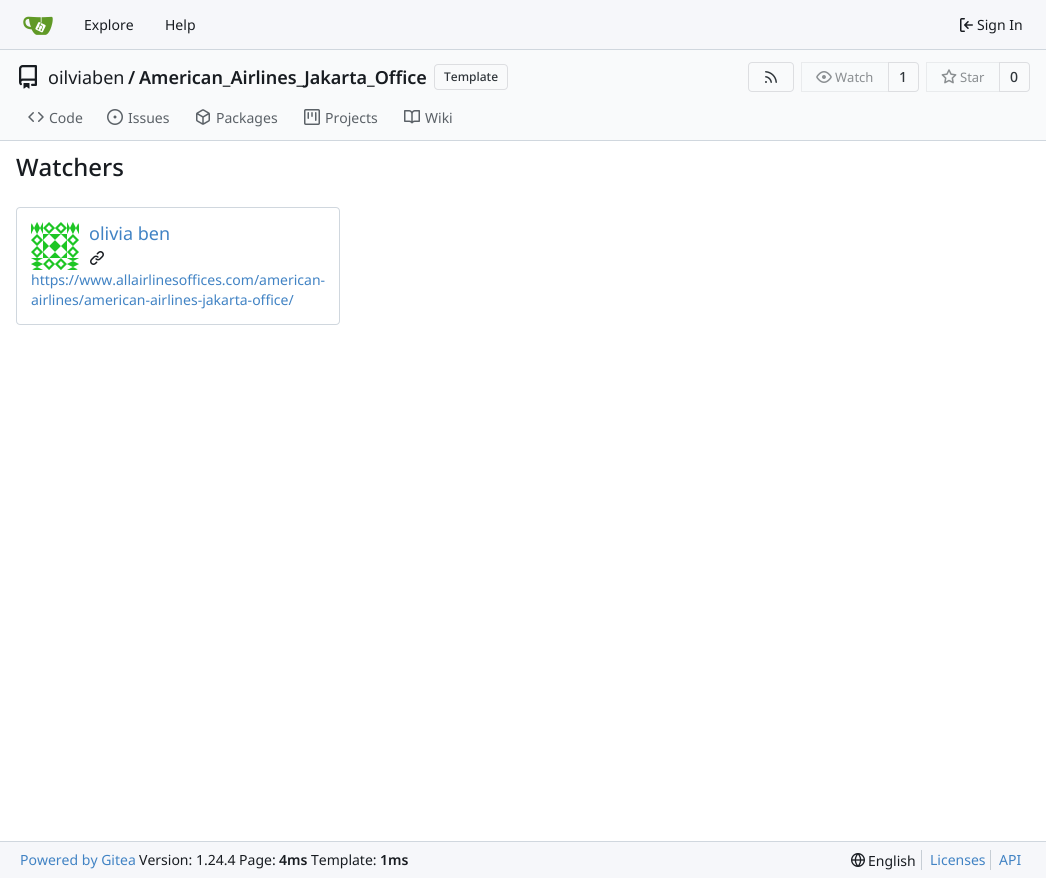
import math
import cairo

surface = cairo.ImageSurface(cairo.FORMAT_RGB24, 1046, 878)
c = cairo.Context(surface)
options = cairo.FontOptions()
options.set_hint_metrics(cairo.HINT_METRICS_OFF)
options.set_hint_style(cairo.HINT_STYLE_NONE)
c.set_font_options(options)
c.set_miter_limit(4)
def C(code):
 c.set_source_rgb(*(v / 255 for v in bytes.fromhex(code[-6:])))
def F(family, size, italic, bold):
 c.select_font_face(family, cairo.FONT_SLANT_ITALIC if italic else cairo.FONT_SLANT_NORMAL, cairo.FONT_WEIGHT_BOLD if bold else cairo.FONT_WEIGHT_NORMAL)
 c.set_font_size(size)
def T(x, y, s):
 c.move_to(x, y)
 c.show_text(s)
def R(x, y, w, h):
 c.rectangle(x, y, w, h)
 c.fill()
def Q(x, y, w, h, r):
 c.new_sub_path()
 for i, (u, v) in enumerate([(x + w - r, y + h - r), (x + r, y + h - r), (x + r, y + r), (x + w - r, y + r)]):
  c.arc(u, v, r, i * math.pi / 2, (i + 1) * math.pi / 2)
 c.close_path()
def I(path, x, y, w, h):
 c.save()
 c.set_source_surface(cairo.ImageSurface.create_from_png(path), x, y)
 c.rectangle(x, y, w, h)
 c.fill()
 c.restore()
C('ffffff')
c.paint()
C('f6f7fa')
R(0,0,1046,49)
C('d0d7de')
R(0,49,1046,1)
I('1.png',23,16,30,19)
F('Noto Sans',14,0,0)
C('181c21')
T(84,30,'Explore')
T(165,30,'Help')
I('2.png',960,18,13,14)
T(977,30,'Sign In')
C('f9fafb')
R(0,50,1046,90)
I('3.png',19,65,18,24)
F('Noto Sans',18,0,0)
C('181c21')
T(48,84,'oilviaben')
F('Noto Sans SemiBold',18,0,0)
T(128,84,'/')
T(139,84,'American_Airlines_Jakarta_Office')
Q(434.5,64.5,73,25,3.5)
C('dddee1')
c.set_line_width(1)
c.stroke()
F('Noto Sans Medium',12,0,0)
C('30363b')
T(444,81,'Template')
Q(748.5,62.5,45,29,3.5)
C('dddee1')
c.stroke()
I('4.png',765,71,12,12)
c.new_path()
c.move_to(888.5,62.5)
c.line_to(915,62.5)
c.curve_to(917,62.5,918.5,64,918.5,66)
c.line_to(918.5,88)
c.curve_to(918.5,90,917,91.5,915,91.5)
c.line_to(888.5,91.5)
c.close_path()
c.stroke()
c.set_source_rgba(0.973,0.976,0.984,0.55)
c.new_path()
c.move_to(805,62)
c.line_to(889,62)
c.line_to(889,92)
c.line_to(805,92)
c.curve_to(803,92,801,90,801,88)
c.line_to(801,66)
c.curve_to(801,64,803,62,805,62)
c.close_path()
c.fill()
c.rectangle(801.5,62.5,87,29)
c.set_source_rgba(0,0,0.09,0.06)
c.stroke()
I('5.png',816,71,16,12)
F('Noto Sans',13,0,0)
C('8a8e91')
T(835,82,'Watch')
F('Noto Sans Medium',14,0,0)
C('30363b')
T(899,82,'1')
c.new_path()
c.move_to(999.5,62.5)
c.line_to(1026,62.5)
c.curve_to(1028,62.5,1029.5,64,1029.5,66)
c.line_to(1029.5,88)
c.curve_to(1029.5,90,1028,91.5,1026,91.5)
c.line_to(999.5,91.5)
c.close_path()
C('dddee1')
c.stroke()
c.set_source_rgba(0.973,0.976,0.984,0.55)
c.new_path()
c.move_to(930,62)
c.line_to(1000,62)
c.line_to(1000,92)
c.line_to(930,92)
c.curve_to(928,92,926,90,926,88)
c.line_to(926,66)
c.curve_to(926,64,928,62,930,62)
c.close_path()
c.fill()
c.rectangle(926.5,62.5,73,29)
c.set_source_rgba(0,0,0.09,0.06)
c.stroke()
I('6.png',941,69,16,15)
F('Noto Sans',13,0,0)
C('8a8e91')
T(960,82,'Star')
F('Noto Sans Medium',14,0,0)
C('30363b')
T(1010,82,'0')
I('7.png',28,112,16,10)
F('Noto Sans',14,0,0)
C('5b6167')
T(49,123,'Code')
I('8.png',107,109,16,16)
T(128,123,'Issues')
I('9.png',196,109,14,16)
T(216,123,'Packages')
I('10.png',304,109,16,16)
T(325,123,'Projects')
I('11.png',404,110,16,14)
T(425,123,'Wiki')
C('d0d7de')
R(0,140,1046,1)
F('Noto Sans Medium',24,0,0)
C('181c21')
T(16,176,'Watchers')
Q(16.5,207.5,323,117,3.5)
C('d0d7de')
c.stroke()
I('12.png',31,222,48,48)
F('Noto Sans',18,0,0)
C('4183c4')
T(89,240,'olivia ben')
I('13.png',90,251,14,14)
F('Noto Sans',14,0,0)
T(31,285,'https://www.allairlinesoffices.com/american-')
T(31,305,'airlines/american-airlines-jakarta-office/')
C('f6f7fa')
R(0,842,1046,36)
C('d0d7de')
R(0,841,1046,1)
C('4183c4')
T(20,865,'Powered by Gitea')
C('181c21')
T(139,865,'Version: 1.24.4 Page:')
F('Noto Sans SemiBold',14,0,0)
T(279,865,'4ms')
F('Noto Sans',14,0,0)
T(311,865,'Template:')
F('Noto Sans SemiBold',14,0,0)
T(380,865,'1ms')
I('14.png',851,853,14,14)
F('Noto Sans',14,0,0)
T(868,866,'English')
C('c7ced5')
R(921,850,1,20)
C('4183c4')
T(930,865,'Licenses')
C('c7ced5')
R(990,850,1,20)
C('4183c4')
T(999,865,'API')
surface.write_to_png('o.png')
